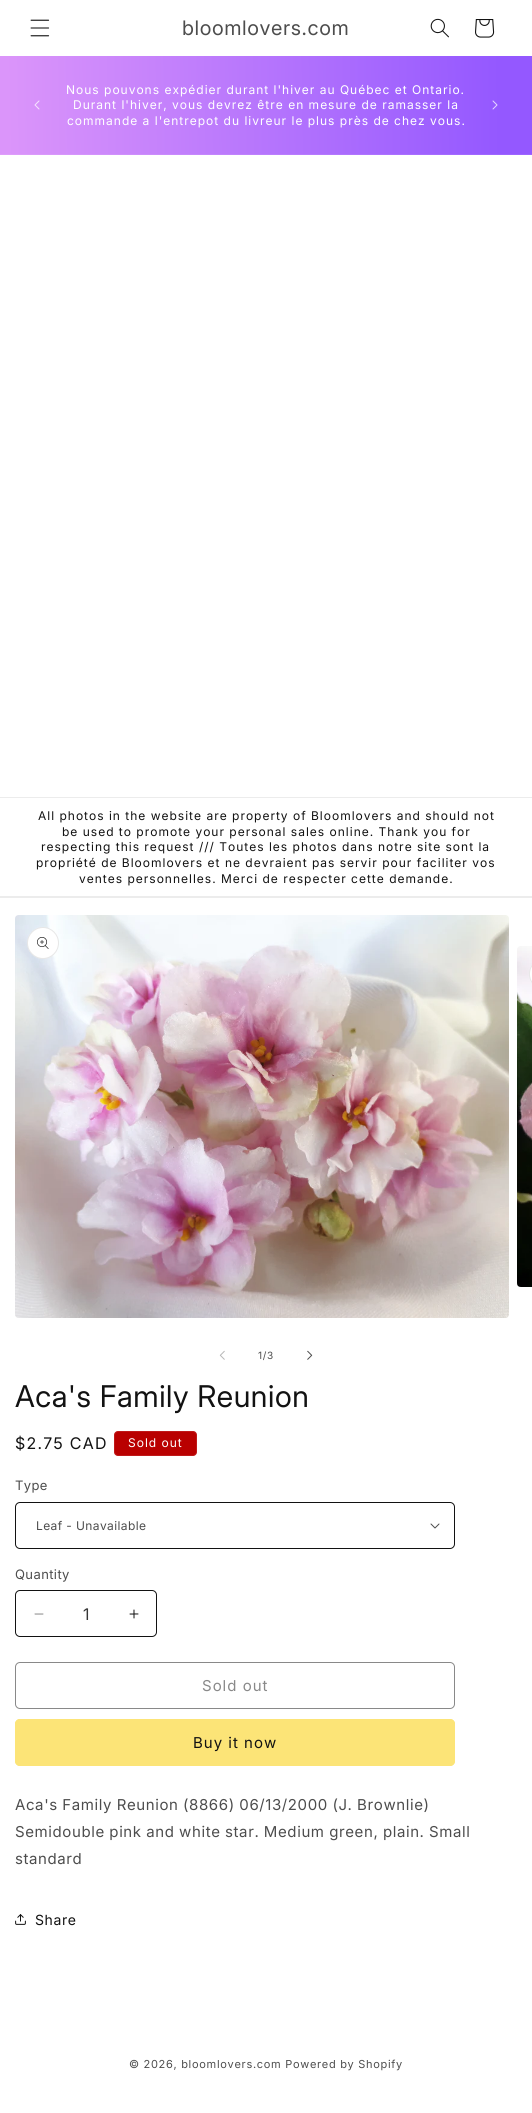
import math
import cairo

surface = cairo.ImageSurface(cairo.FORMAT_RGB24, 532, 2113)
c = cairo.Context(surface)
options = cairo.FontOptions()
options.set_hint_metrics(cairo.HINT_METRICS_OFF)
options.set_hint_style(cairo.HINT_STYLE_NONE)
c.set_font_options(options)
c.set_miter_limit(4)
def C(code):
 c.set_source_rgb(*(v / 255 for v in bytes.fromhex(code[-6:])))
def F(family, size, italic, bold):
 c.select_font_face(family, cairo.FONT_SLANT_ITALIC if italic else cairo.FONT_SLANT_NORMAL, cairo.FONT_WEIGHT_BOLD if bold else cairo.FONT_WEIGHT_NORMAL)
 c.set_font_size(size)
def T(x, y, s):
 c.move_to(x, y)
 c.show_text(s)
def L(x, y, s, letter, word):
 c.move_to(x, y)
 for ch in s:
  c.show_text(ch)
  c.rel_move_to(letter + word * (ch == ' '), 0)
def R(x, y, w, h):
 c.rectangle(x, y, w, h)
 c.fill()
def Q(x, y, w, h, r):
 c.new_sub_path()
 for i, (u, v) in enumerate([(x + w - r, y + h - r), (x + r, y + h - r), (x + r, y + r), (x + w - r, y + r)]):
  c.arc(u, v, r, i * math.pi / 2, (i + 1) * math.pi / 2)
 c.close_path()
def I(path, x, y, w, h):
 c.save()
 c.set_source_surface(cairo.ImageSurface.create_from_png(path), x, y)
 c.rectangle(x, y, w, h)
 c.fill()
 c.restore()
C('ffffff')
c.paint()
I('1.png',30,19,20,18)
F('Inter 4',20,0,0)
C('4d4d4d')
L(182,35,'bloomlovers.com',.6,0)
I('2.png',430,18,19,20)
I('3.png',475,19,20,19)
gradient = cairo.LinearGradient(-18,1061,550,1052)
gradient.add_color_stop_rgba(.07,0.859,0.584,0.98,1)
gradient.add_color_stop_rgba(.94,0.58,0.345,1,1)
c.set_source(gradient)
R(0,56,532,98)
gradient = cairo.LinearGradient(-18,1061,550,1052)
gradient.add_color_stop_rgba(.07,0.871,0.616,0.98,1)
gradient.add_color_stop_rgba(.94,0.616,0.396,1,1)
c.set_source(gradient)
R(0,154,532,1)
I('4.png',34,100,6,10)
F('Inter',12,0,0)
C('ffffff')
L(66,94,'Nous pouvons expédier durant l\'hiver au Québec et Ontario.',1,0)
L(73,109,'Durant l\'hiver, vous devrez être en mesure de ramasser la',1,0)
L(67,125,'commande a l\'entrepot du livreur le plus près de chez vous.',1,0)
I('5.png',492,100,6,10)
C('ececec')
R(0,797,532,1)
R(0,896,532,2)
C('121212')
L(38,820,'All photos in the website are property of Bloomlovers and should not',1,0)
L(62,836,'be used to promote your personal sales online. Thank you for',1,0)
L(41,851,'respecting this request /// Toutes les photos dans notre site sont la',1,0)
L(36,867,'propriété de Bloomlovers et ne devraient pas servir pour faciliter vos',1,0)
L(79,883,'ventes personnelles. Merci de respecter cette demande.',1,0)
I('6.png',15,915,494,403)
C('ffffff')
c.arc(43,943,16,0,2 * math.pi)
c.fill()
c.arc(43,943,15.5,0,2 * math.pi)
c.set_source_rgba(0.071,0.071,0.071,0.1)
c.set_line_width(1)
c.stroke()
I('7.png',37,937,12,12)
I('8.png',517,946,15,341)
C('ffffff')
c.new_path()
c.move_to(545,958)
c.line_to(532,958)
c.line_to(532,990)
c.line_to(545,990)
c.curve_to(536,990,529,983,529,974)
c.curve_to(529,965,536,958,545,958)
c.close_path()
c.fill()
Q(529.5,958.5,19,31,15.5)
c.set_source_rgba(0.071,0.071,0.071,0.1)
c.stroke()
I('9.png',219,1350,6,10)
F('Inter',10,0,0)
C('4d4d4d')
L(258,1359,'1/3',.7,0)
I('10.png',307,1350,6,10)
F('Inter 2',30,0,0)
C('121212')
L(15,1407,'Aca\'s Family Reunion',.6,0)
F('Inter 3',16,0,0)
L(15,1449,'$2.75 CAD',1.25,0)
C('b90000')
Q(114,1431,83,25,4)
c.fill()
Q(114.5,1431.5,82,24,3.5)
c.set_source_rgba(1,1,1,0.1)
c.stroke()
F('Inter',12,0,0)
C('ffffff')
L(128,1447,'Sold out',1,0)
F('Inter',13,0,0)
C('4d4d4d')
L(15,1490,'Type',.4,0)
I('11.png',430,1523,10,6)
Q(15.5,1502.5,439,46,4.5)
C('121212')
c.stroke()
F('Inter',12,0,0)
C('4d4d4d')
L(36,1530,'Leaf - Unavailable',.4,0)
F('Inter',13,0,0)
L(15,1579,'Quantity',.4,0)
I('12.png',34,1613,10,2)
I('13.png',129,1609,10,10)
Q(15.5,1590.5,141,46,4.5)
C('121212')
c.stroke()
F('Inter 3',16,0,0)
C('363636')
T(83,1620,'1')
Q(15.5,1662.5,439,46,4.5)
C('898989')
c.stroke()
F('Inter',15,0,0)
L(202,1691,'Sold out',1,0)
C('fce477')
Q(15,1719,440,47,5)
c.fill()
Q(15.5,1719.5,439,46,4.5)
c.stroke()
C('121212')
L(193,1748,'Buy it now',1,0)
C('4d4d4d')
L(15,1810,'Aca\'s Family Reunion (8866) 06/13/2000 (J. Brownlie)',.6,-.25)
L(15,1837,'Semidouble pink and white star. Medium green, plain. Small',.6,-.25)
L(15,1864,'standard',.6,0)
I('14.png',15,1914,11,11)
F('Inter',14,0,0)
C('121212')
L(35,1925,'Share',.6,0)
F('Inter',11,0,0)
C('4d4d4d')
L(129,2068,'© 2026, bloomlovers.com Powered by Shopify',.7,0)
surface.write_to_png('o.png')
